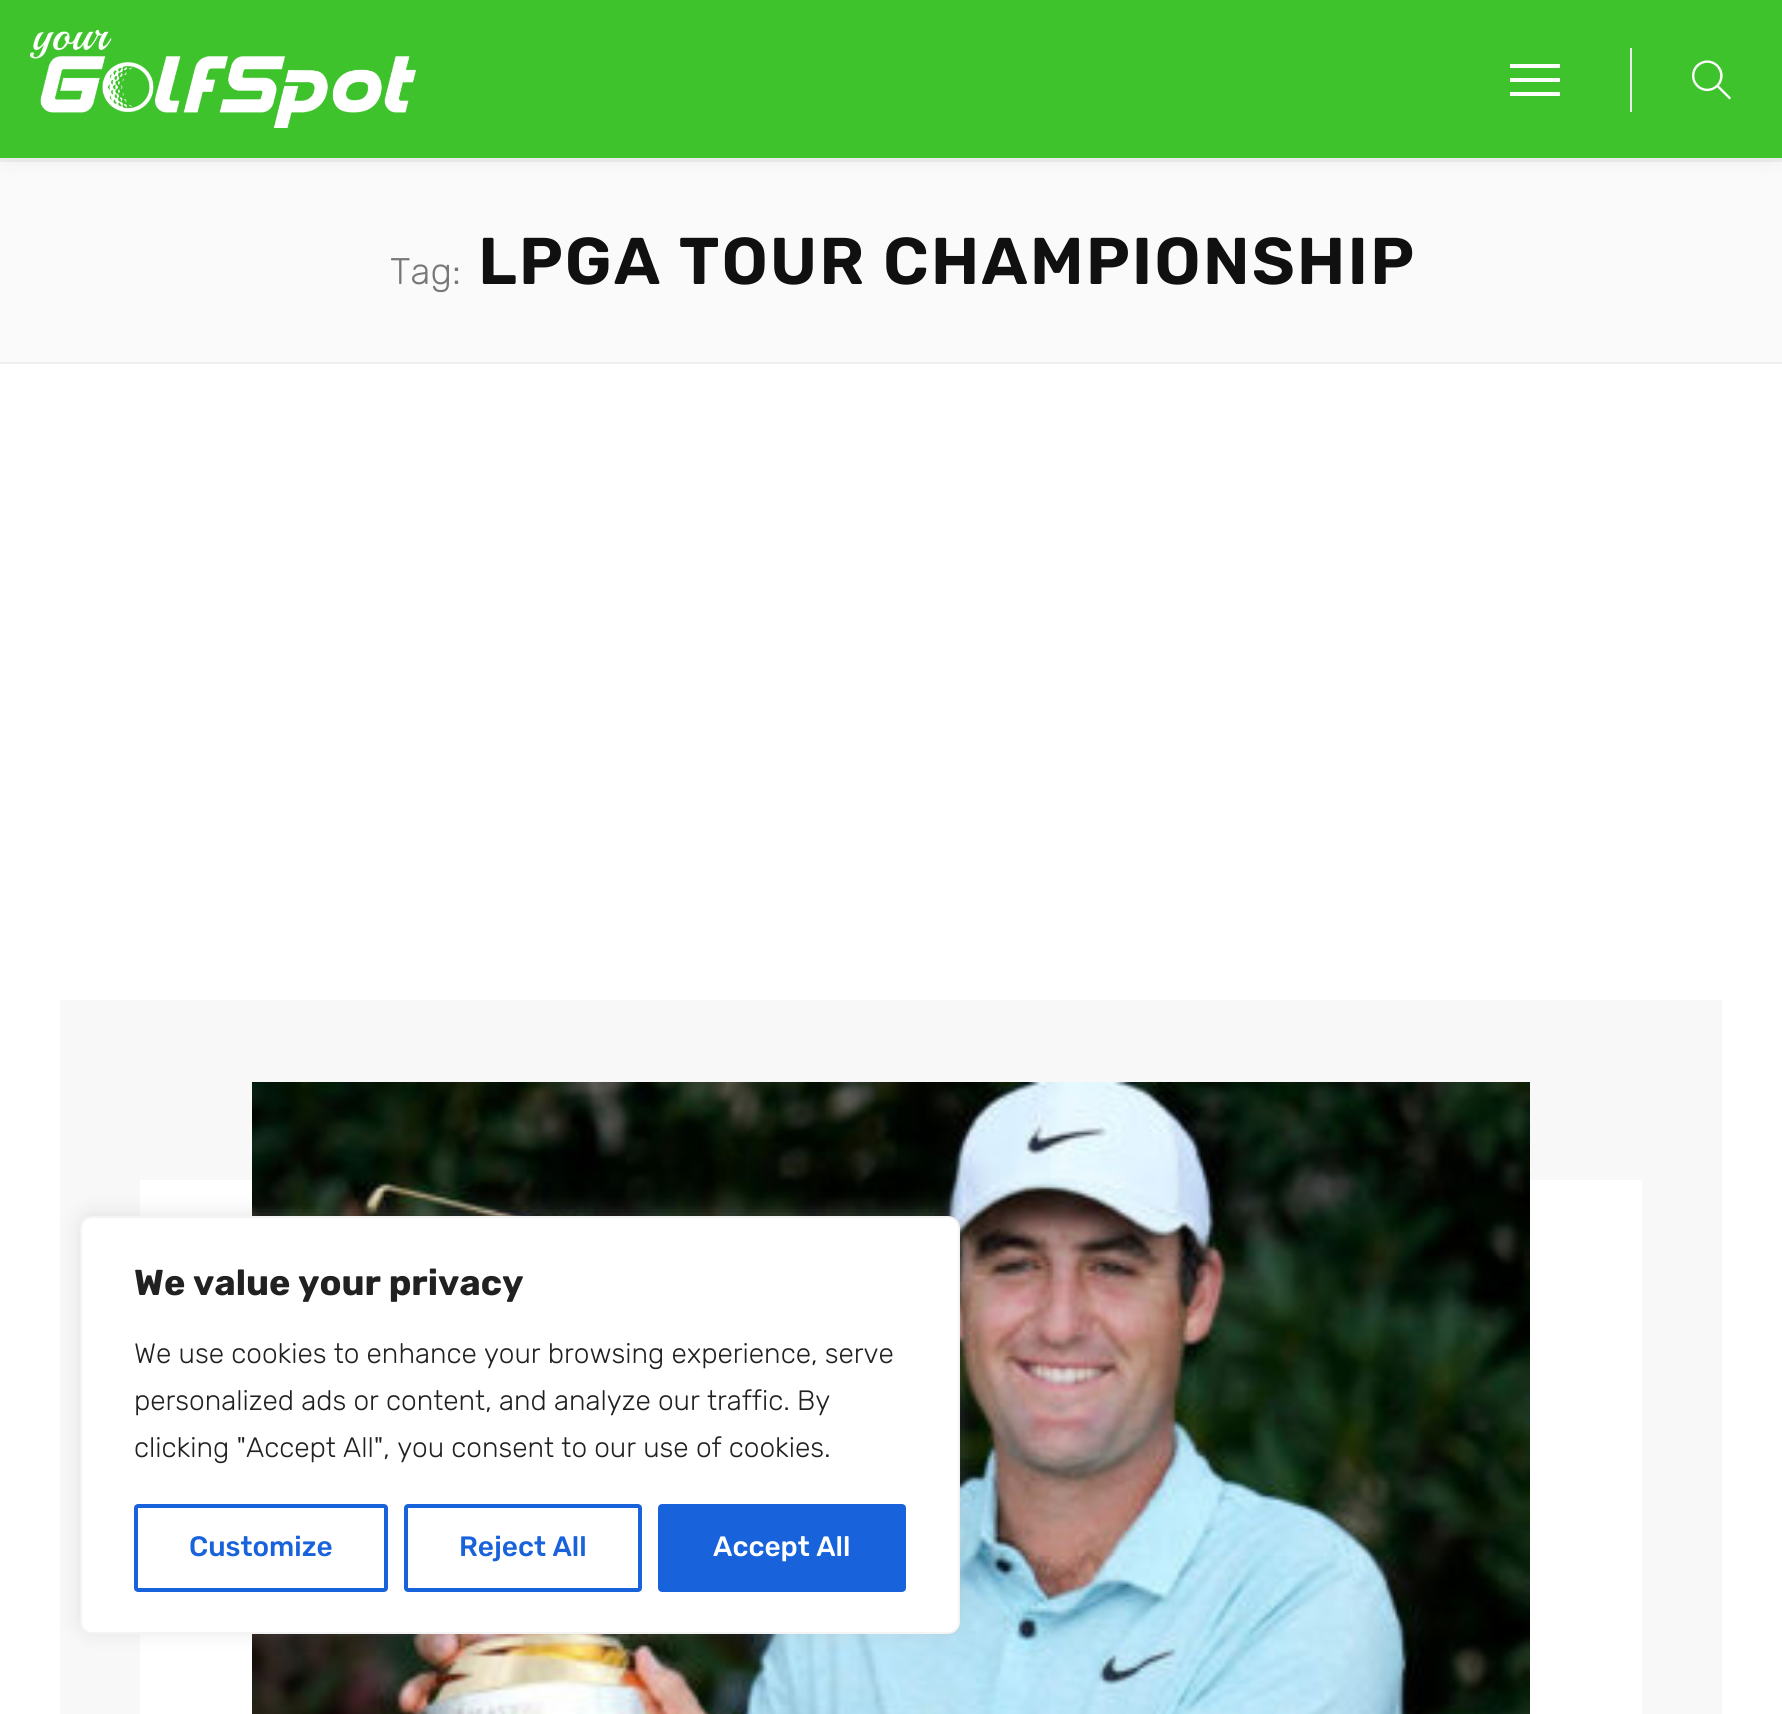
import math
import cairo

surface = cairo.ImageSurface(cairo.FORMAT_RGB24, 1782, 1714)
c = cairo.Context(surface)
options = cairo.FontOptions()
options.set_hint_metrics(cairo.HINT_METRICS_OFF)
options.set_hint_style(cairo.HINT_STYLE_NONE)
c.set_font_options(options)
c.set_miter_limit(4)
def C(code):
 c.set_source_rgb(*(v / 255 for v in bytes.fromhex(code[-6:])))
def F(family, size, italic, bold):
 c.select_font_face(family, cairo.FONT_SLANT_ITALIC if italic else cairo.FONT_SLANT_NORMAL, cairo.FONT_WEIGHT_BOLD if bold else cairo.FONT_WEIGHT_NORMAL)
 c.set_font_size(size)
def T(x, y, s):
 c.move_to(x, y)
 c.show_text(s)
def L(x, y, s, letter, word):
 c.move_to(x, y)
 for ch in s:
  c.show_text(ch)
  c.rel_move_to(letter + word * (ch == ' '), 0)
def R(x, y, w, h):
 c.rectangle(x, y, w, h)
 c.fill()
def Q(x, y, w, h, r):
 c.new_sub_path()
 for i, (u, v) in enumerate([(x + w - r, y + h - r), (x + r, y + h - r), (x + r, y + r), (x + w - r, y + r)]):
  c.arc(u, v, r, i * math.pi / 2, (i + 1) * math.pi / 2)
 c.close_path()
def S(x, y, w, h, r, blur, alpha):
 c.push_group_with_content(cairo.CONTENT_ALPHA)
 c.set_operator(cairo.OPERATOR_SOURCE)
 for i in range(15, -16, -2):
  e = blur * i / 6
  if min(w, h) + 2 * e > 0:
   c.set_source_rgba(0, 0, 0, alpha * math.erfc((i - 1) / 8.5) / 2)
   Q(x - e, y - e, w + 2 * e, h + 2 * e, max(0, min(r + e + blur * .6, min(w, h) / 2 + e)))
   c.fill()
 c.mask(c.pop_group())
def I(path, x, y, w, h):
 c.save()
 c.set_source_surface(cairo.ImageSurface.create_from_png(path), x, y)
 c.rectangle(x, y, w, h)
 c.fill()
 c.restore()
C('ffffff')
c.paint()
C('fafafa')
R(0,162,1782,200)
C('eeeeee')
R(0,160,1782,2)
C('000000')
S(8,12,1766,144,0,11,.09)
C('3fc32d')
R(0,0,1782,158)
C('e9e9e9')
R(0,158,1782,2)
I('1.png',30,30,386,98)
C('ffffff')
R(1510,78,50,4)
R(1510,64,50,4)
R(1510,92,50,4)
C('e9e9e9')
R(1630,48,2,64)
I('2.png',1692,60,39,40)
C('eeeeee')
R(0,362,1782,2)
F('Rubik Light',37,0,0)
C('777777')
T(390,284,'Tag:')
F('Rubik SemiBold',66,0,0)
C('101010')
L(478,284,'LPGA TOUR CHAMPIONSHIP',2,0)
C('f8f8f8')
R(60,1000,1662,714)
C('ffffff')
R(140,1180,1502,534)
I('3.png',252,1082,1278,632)
C('acabab')
S(80,1214,880,418,12,10,.3)
C('ffffff')
Q(81,1217,878,416,11)
c.fill_preserve()
C('f4f4f4')
c.stroke()
F('Rubik',36,0,1)
C('212121')
T(134,1295,'We value your privacy')
F('Rubik Light',28,0,0)
T(134,1363,'We use cookies to enhance your browsing experience, serve')
T(134,1410,'personalized ads or content, and analyze our traffic. By')
T(134,1457,'clicking "Accept All", you consent to our use of cookies.')
Q(136,1506,250,84,2)
C('1863dc')
c.set_line_width(4)
c.stroke()
F('Rubik Medium',28,0,0)
T(189,1556,'Customize')
Q(406,1506,234,84,2)
c.stroke()
T(459,1556,'Reject All')
Q(660,1506,244,84,2)
c.fill_preserve()
c.stroke()
C('ffffff')
T(713,1556,'Accept All')
surface.write_to_png('o.png')
